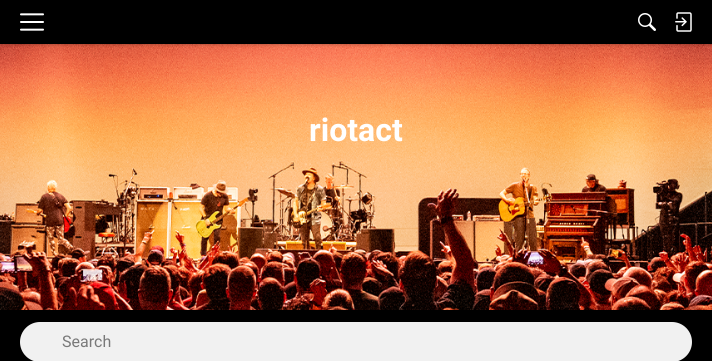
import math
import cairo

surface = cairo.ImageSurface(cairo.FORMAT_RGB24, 712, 361)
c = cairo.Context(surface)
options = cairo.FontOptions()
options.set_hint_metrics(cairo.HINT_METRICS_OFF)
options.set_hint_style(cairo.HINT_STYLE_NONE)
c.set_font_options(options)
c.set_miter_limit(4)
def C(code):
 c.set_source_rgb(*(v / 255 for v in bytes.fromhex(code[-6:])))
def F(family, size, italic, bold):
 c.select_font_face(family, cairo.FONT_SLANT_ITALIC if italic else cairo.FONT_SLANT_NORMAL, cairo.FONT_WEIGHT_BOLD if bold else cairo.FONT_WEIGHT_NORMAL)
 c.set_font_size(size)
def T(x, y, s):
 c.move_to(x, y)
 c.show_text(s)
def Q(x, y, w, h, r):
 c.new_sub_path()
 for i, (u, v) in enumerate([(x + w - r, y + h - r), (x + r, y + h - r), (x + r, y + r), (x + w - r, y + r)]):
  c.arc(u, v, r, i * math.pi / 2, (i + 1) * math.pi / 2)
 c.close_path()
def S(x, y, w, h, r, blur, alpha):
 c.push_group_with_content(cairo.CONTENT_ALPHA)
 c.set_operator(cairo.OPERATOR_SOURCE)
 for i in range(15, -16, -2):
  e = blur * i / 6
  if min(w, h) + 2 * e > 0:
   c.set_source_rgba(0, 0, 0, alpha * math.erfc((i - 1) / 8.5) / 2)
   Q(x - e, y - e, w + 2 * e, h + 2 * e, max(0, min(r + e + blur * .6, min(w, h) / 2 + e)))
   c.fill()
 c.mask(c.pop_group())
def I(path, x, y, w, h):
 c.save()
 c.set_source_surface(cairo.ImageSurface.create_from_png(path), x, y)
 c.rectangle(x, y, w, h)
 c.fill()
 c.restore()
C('000000')
c.paint()
I('4.png',0,44,712,266)
S(0,1,712,44,0,1.5,.22)
I('1.png',20,13,24,18)
I('2.png',638,13,18,18)
I('3.png',675,12,17,20)
F('Roboto',32,0,1)
C('ffffff')
T(309,141,'riotact')
C('f1f1f1')
Q(20,322,672,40,20)
c.fill()
F('Roboto',16,0,0)
C('797979')
T(62,347,'Search')
surface.write_to_png('o.png')
